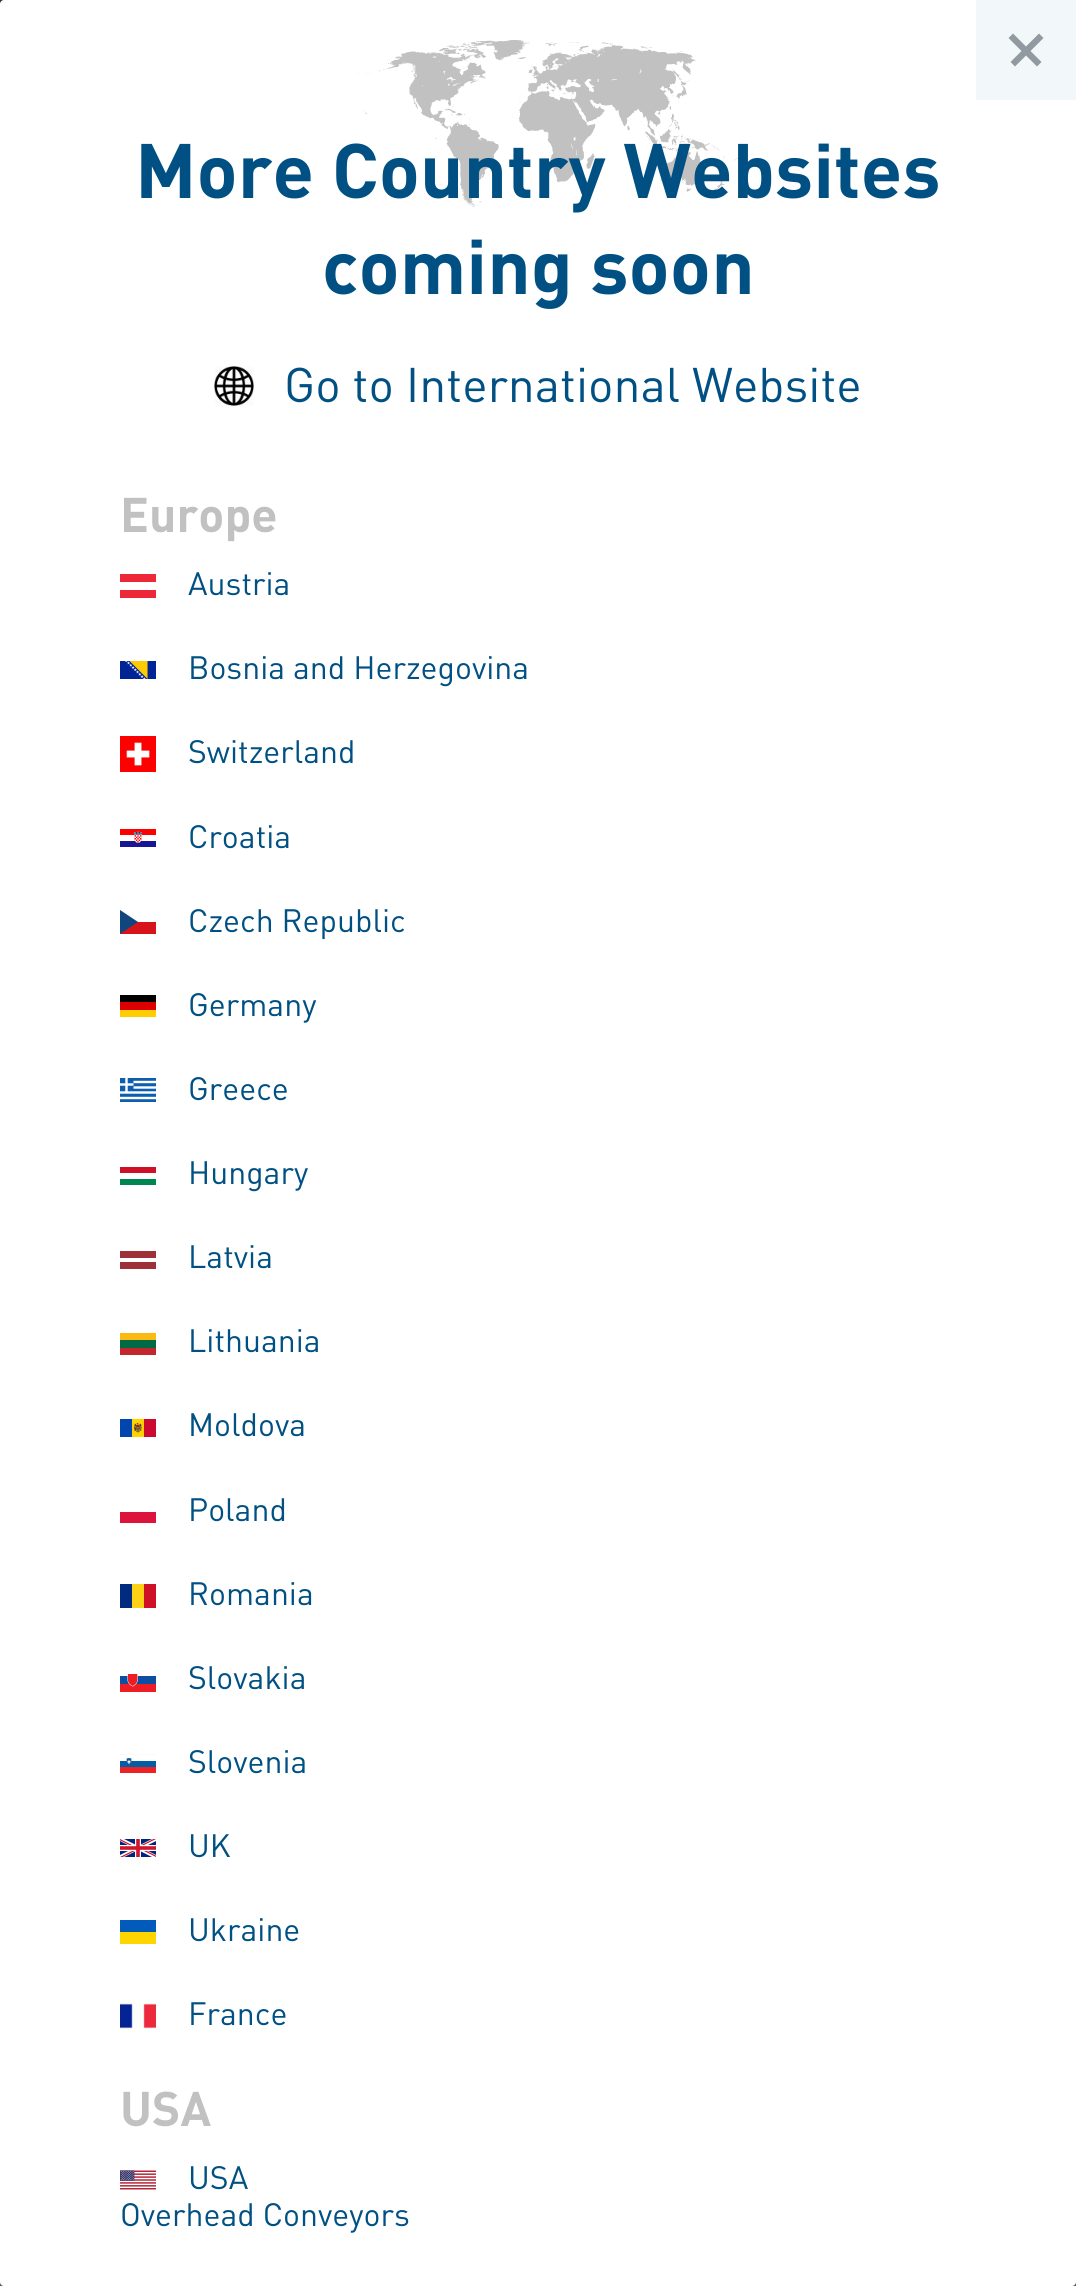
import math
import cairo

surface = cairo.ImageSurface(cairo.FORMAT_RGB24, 1076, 2286)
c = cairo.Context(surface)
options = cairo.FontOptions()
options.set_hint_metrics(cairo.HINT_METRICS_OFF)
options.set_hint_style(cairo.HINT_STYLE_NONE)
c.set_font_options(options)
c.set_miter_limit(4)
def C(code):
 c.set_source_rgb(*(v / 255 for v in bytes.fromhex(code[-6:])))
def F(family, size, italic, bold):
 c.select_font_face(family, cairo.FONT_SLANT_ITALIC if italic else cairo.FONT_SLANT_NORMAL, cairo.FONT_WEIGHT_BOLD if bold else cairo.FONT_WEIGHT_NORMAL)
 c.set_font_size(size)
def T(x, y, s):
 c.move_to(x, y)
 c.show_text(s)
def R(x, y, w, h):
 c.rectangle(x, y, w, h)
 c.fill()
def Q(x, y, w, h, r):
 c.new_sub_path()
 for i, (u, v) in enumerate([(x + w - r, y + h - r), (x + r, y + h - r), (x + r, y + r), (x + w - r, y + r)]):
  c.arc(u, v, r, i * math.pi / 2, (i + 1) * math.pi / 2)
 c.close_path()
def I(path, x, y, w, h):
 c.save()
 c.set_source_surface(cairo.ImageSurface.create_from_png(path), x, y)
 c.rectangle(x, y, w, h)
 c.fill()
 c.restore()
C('51585d')
c.paint()
C('1e323f')
R(0,0,4,4)
C('ffffff')
Q(0,0,1076,2286,4)
c.fill()
I('1.png',345,40,393,167)
C('f2f7fa')
R(976,0,100,100)
C('919aa1')
c.new_path()
c.move_to(1008.5,38)
c.line_to(1013,33.5)
c.line_to(1041.5,62)
c.line_to(1037,66.5)
c.close_path()
c.fill()
c.new_path()
c.move_to(1039,33.5)
c.line_to(1043.5,38)
c.line_to(1015,66.5)
c.line_to(1010.5,62)
c.close_path()
c.fill()
F('DIN',76,0,1)
C('005083')
T(135,198,'More Country Websites')
T(322,294,'coming soon')
I('2.png',214,366,40,40)
F('DIN',48,0,0)
T(284,402,'Go to International Website')
F('DIN',48,0,1)
C('c1c1c1')
T(120,532,'Europe')
C('ed2939')
R(120,574,36,24)
C('ffffff')
R(120,582,36,8)
F('DIN',32,0,0)
C('005083')
T(188,595,'Austria')
I('3.png',120,661,36,18)
T(188,679,'Bosnia and Herzegovina')
I('4.png',120,736,36,36)
T(188,763,'Switzerland')
I('5.png',120,829,36,18)
T(188,848,'Croatia')
C('d7141a')
R(120,922,36,12)
C('11457e')
c.new_path()
c.move_to(138,922)
c.line_to(120,910)
c.line_to(120,934)
c.close_path()
c.fill()
C('005083')
T(188,932,'Czech Republic')
C('000000')
R(120,995,36,7)
C('dd0000')
R(120,1002,36,8)
C('ffce00')
R(120,1010,36,7)
C('005083')
T(188,1016,'Germany')
C('0d5eaf')
R(120,1078,36,24)
c.new_path()
c.move_to(126.5,1078)
c.line_to(126.5,1092.5)
c.move_to(120,1084.5)
c.line_to(133.5,1084.5)
c.move_to(133.5,1082)
c.line_to(156,1082)
c.move_to(133.5,1087.5)
c.line_to(156,1087.5)
c.move_to(120,1092.5)
c.line_to(156,1092.5)
c.move_to(120,1098)
c.line_to(156,1098)
C('ffffff')
c.set_line_width(2.4)
c.stroke()
C('005083')
T(188,1100,'Greece')
C('ce1126')
R(120,1167,36,6)
C('008751')
R(120,1179,36,6)
C('005083')
T(188,1184,'Hungary')
C('9e3039')
R(120,1251,36,18)
C('ffffff')
R(120,1258,36,4)
C('005083')
T(188,1268,'Latvia')
C('fdb913')
R(120,1333,36,7)
C('c1272d')
R(120,1348,36,7)
C('006a44')
R(120,1340,36,8)
C('005083')
T(188,1352,'Lithuania')
I('6.png',120,1419,36,18)
T(188,1436,'Moldova')
C('dc143c')
R(120,1512,36,11)
C('005083')
T(188,1521,'Poland')
C('002b7f')
R(120,1584,12,24)
C('fcd116')
R(132,1584,12,24)
C('ce1126')
R(144,1584,12,24)
C('005083')
T(188,1605,'Romania')
I('7.png',120,1674,36,18)
T(188,1689,'Slovakia')
I('8.png',120,1754,36,19)
T(188,1773,'Slovenia')
I('9.png',120,1839,36,18)
T(188,1857,'UK')
C('005bbb')
R(120,1920,36,12)
C('ffd500')
R(120,1932,36,12)
C('005083')
T(188,1941,'Ukraine')
I('10.png',120,2003,36,26)
T(188,2025,'France')
F('DIN',48,0,1)
C('c1c1c1')
T(120,2126,'USA')
I('11.png',120,2170,36,20)
F('DIN',32,0,0)
C('005083')
T(188,2189,'USA')
T(120,2226,'Overhead Conveyors')
surface.write_to_png('o.png')
